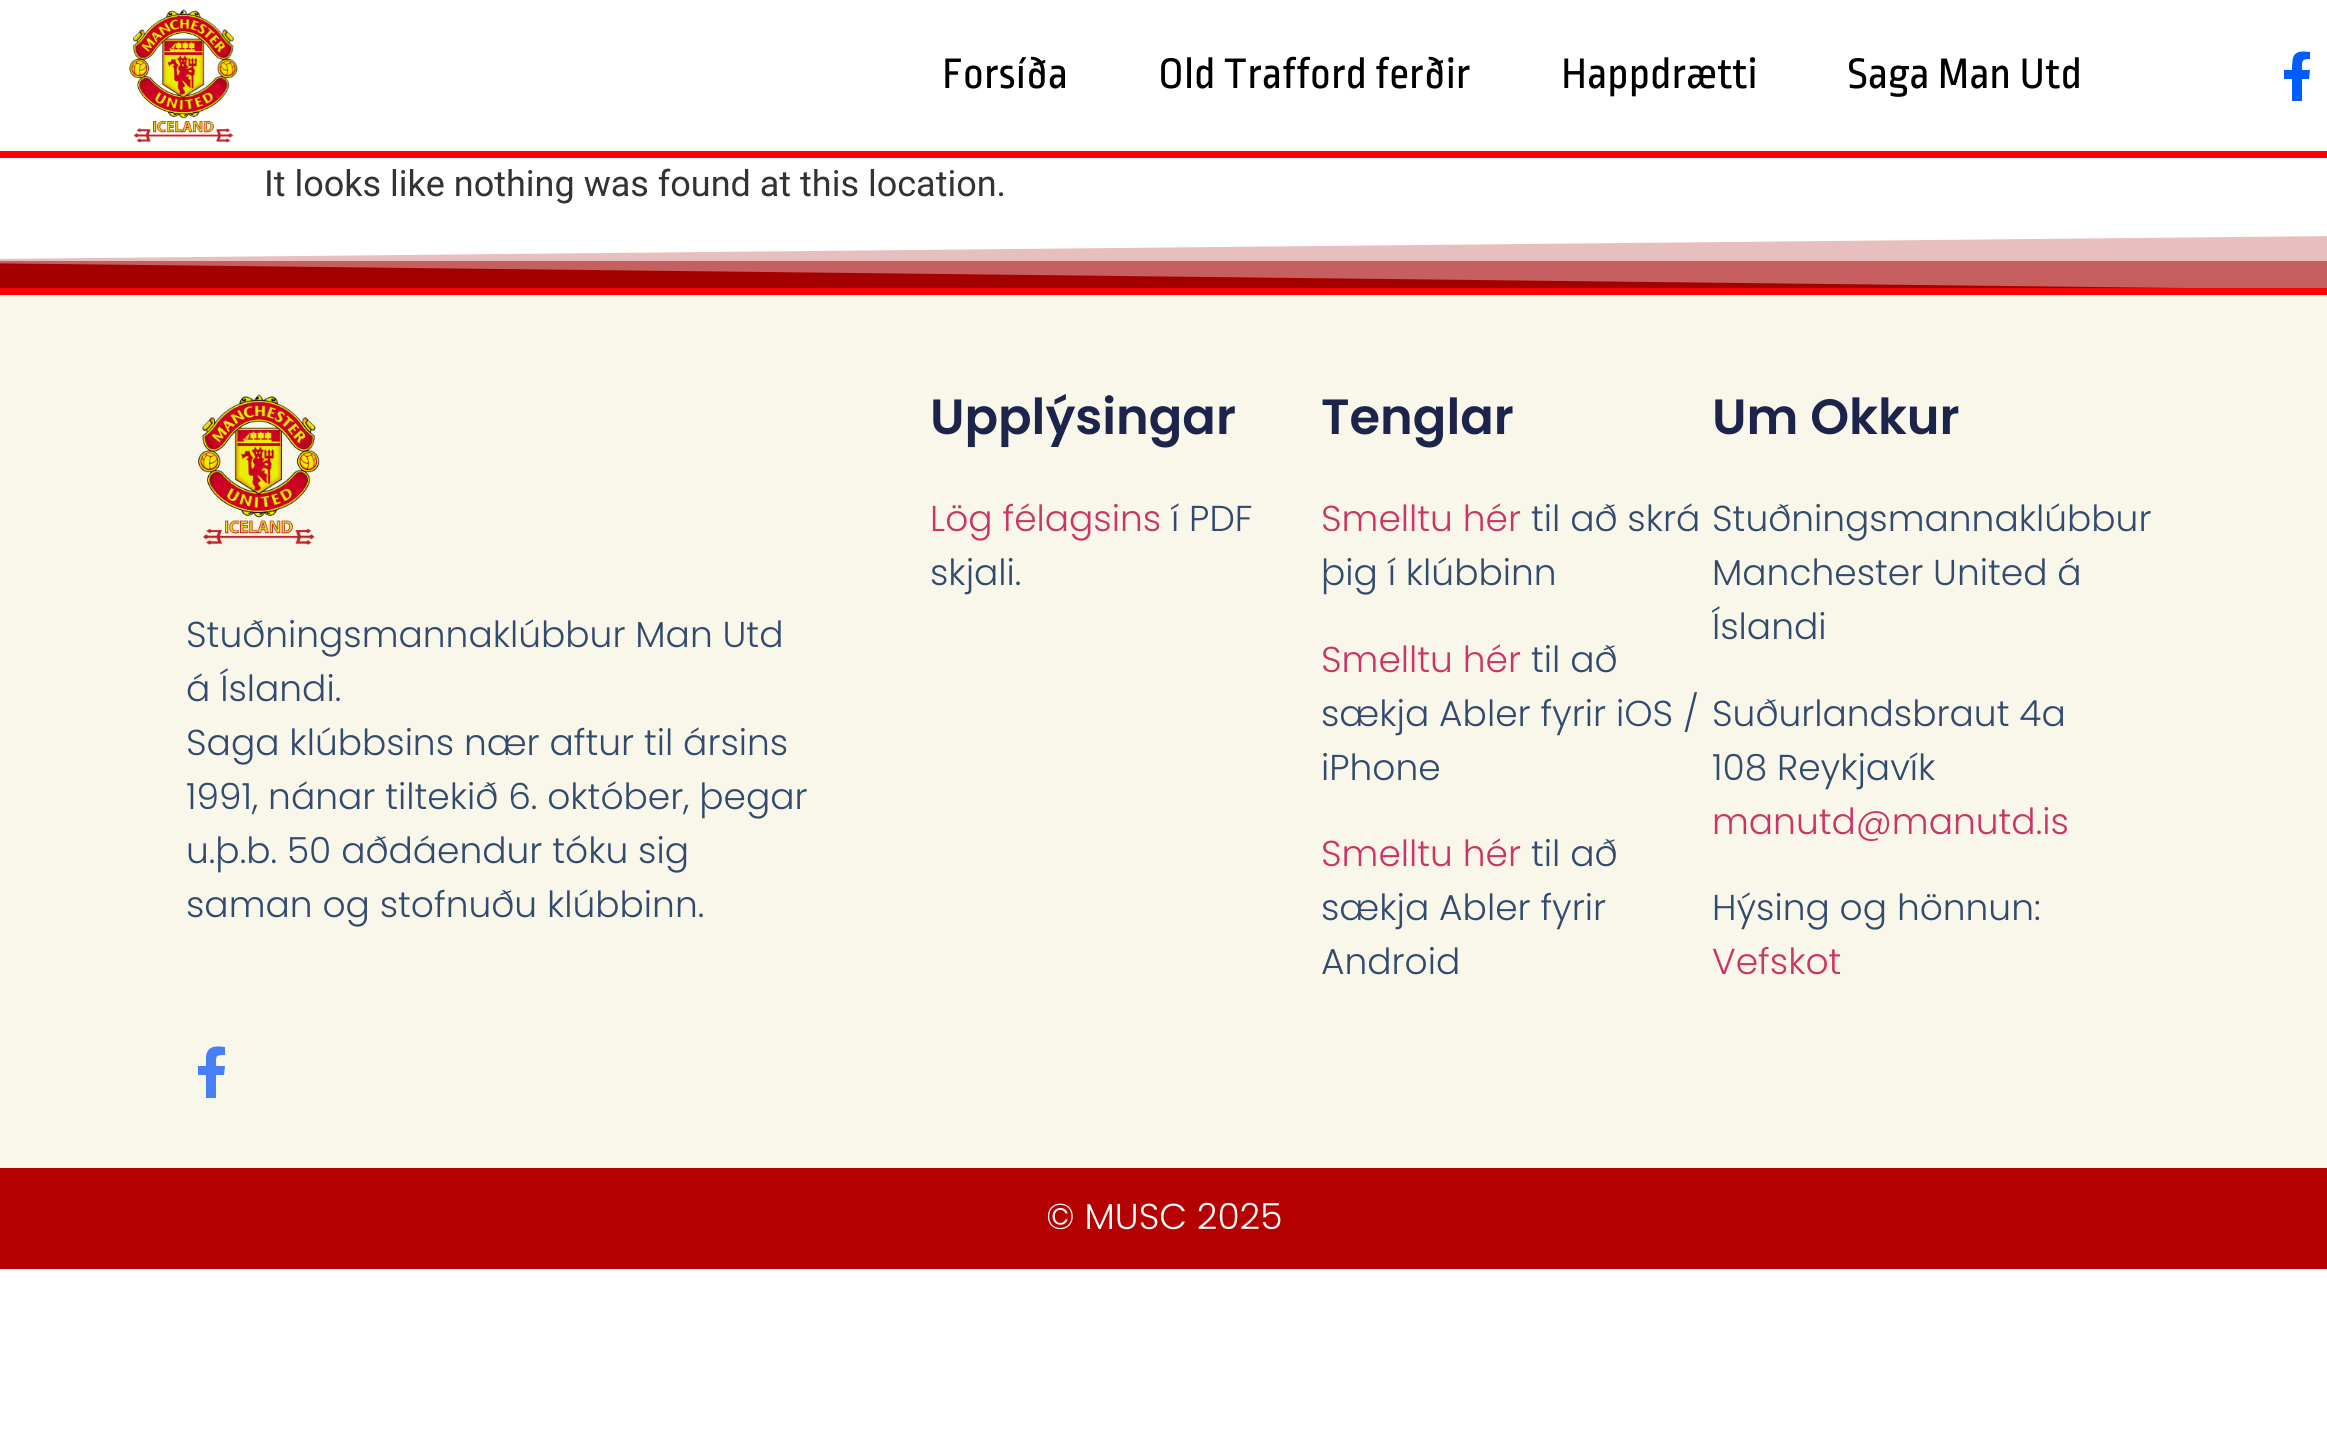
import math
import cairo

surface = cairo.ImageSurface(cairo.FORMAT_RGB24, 2327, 1447)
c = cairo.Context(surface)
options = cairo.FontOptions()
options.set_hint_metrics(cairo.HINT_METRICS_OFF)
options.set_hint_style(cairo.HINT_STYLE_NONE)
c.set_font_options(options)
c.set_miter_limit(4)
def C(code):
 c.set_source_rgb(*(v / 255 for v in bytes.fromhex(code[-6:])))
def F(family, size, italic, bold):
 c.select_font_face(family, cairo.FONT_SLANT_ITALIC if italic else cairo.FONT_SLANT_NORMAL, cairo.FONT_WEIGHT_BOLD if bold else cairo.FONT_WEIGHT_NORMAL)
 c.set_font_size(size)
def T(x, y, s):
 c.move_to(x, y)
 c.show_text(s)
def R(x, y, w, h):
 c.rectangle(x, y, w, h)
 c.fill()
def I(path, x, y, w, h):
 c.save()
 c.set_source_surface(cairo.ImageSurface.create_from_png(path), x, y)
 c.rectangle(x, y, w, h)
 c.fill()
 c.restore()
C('ffffff')
c.paint()
C('d28080')
R(0,261,2327,27)
C('ff0000')
R(0,151,2327,7)
I('1.png',129,9,109,134)
F('Ropa Sans',45,0,0)
C('000000')
T(942,88,'Forsíða')
T(1158,88,'Old Trafford ferðir')
T(1561,88,'Happdrætti')
T(1847,88,'Saga Man Utd')
C('005cff')
c.new_path()
c.move_to(2309,79)
c.line_to(2302,79)
c.line_to(2302,101)
c.line_to(2292,101)
c.line_to(2292,79)
c.line_to(2284,79)
c.line_to(2284,70)
c.line_to(2292,70)
c.curve_to(2292,54,2294,50,2310,52)
c.line_to(2310,59)
c.curve_to(2301,59,2302,61,2302,70)
c.line_to(2310,70)
c.close_path()
c.fill()
F('Roboto',36,0,0)
C('333333')
T(264,196,'It looks like nothing was found at this location.')
C('a50000')
c.new_path()
c.move_to(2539,292)
c.line_to(-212,292)
c.line_to(-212,261)
c.close_path()
c.fill()
c.set_source_rgba(0.647,0,0,0.25)
c.new_path()
c.move_to(-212,292)
c.line_to(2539,292)
c.line_to(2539,234)
c.line_to(-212,261)
c.close_path()
c.fill()
C('f8f7ea')
R(0,295,2327,873)
C('f70404')
R(0,288,2327,7)
I('2.png',198,394,122,151)
F('Poppins Light',36,0,0)
C('324a6d')
T(186,647,'Stuðningsmannaklúbbur Man Utd')
T(186,701,'á Íslandi.')
T(186,755,'Saga klúbbsins nær aftur til ársins')
T(186,809,'1991, nánar tiltekið 6. október, þegar')
T(186,863,'u.þ.b. 50 aðdáendur tóku sig')
T(186,917,'saman og stofnuðu klúbbinn.')
C('467ff7')
c.new_path()
c.move_to(224,1075)
c.line_to(216,1075)
c.line_to(216,1098)
c.line_to(206,1098)
c.line_to(206,1075)
c.line_to(198,1075)
c.line_to(198,1066)
c.line_to(206,1066)
c.line_to(206,1056)
c.curve_to(208,1045,217,1046,225,1047)
c.line_to(225,1055)
c.curve_to(215,1055,216,1056,216,1066)
c.line_to(225,1066)
c.close_path()
c.fill()
F('Poppins SemiBold',49.5,0,0)
C('1c244b')
T(930,434,'Upplýsingar')
F('Poppins Light',36,0,0)
C('cc3366')
T(930,531,'Lög félagsins')
C('324a6d')
T(1171,531,'í PDF')
T(930,585,'skjali.')
F('Poppins SemiBold',49.5,0,0)
C('1c244b')
T(1321,434,'Tenglar')
F('Poppins Light',36,0,0)
C('cc3366')
T(1321,531,'Smelltu hér')
C('324a6d')
T(1531,531,'til að skrá')
T(1321,585,'þig í klúbbinn')
C('cc3366')
T(1321,672,'Smelltu hér')
C('324a6d')
T(1531,672,'til að')
T(1321,726,'sækja Abler fyrir iOS /')
T(1321,780,'iPhone')
C('cc3366')
T(1321,866,'Smelltu hér')
C('324a6d')
T(1531,866,'til að')
T(1321,920,'sækja Abler fyrir')
T(1321,974,'Android')
F('Poppins SemiBold',49.5,0,0)
C('1c244b')
T(1712,434,'Um Okkur')
F('Poppins Light',36,0,0)
C('324a6d')
T(1712,531,'Stuðningsmannaklúbbur')
T(1712,585,'Manchester United á')
T(1712,639,'Íslandi')
T(1712,726,'Suðurlandsbraut 4a')
T(1712,780,'108 Reykjavík')
C('cc3366')
T(1712,834,'manutd@manutd.is')
C('324a6d')
T(1712,920,'Hýsing og hönnun:')
C('cc3366')
T(1712,974,'Vefskot')
C('b40000')
R(0,1168,2327,101)
C('ffffff')
T(1046,1229,'© MUSC 2025')
surface.write_to_png('o.png')
